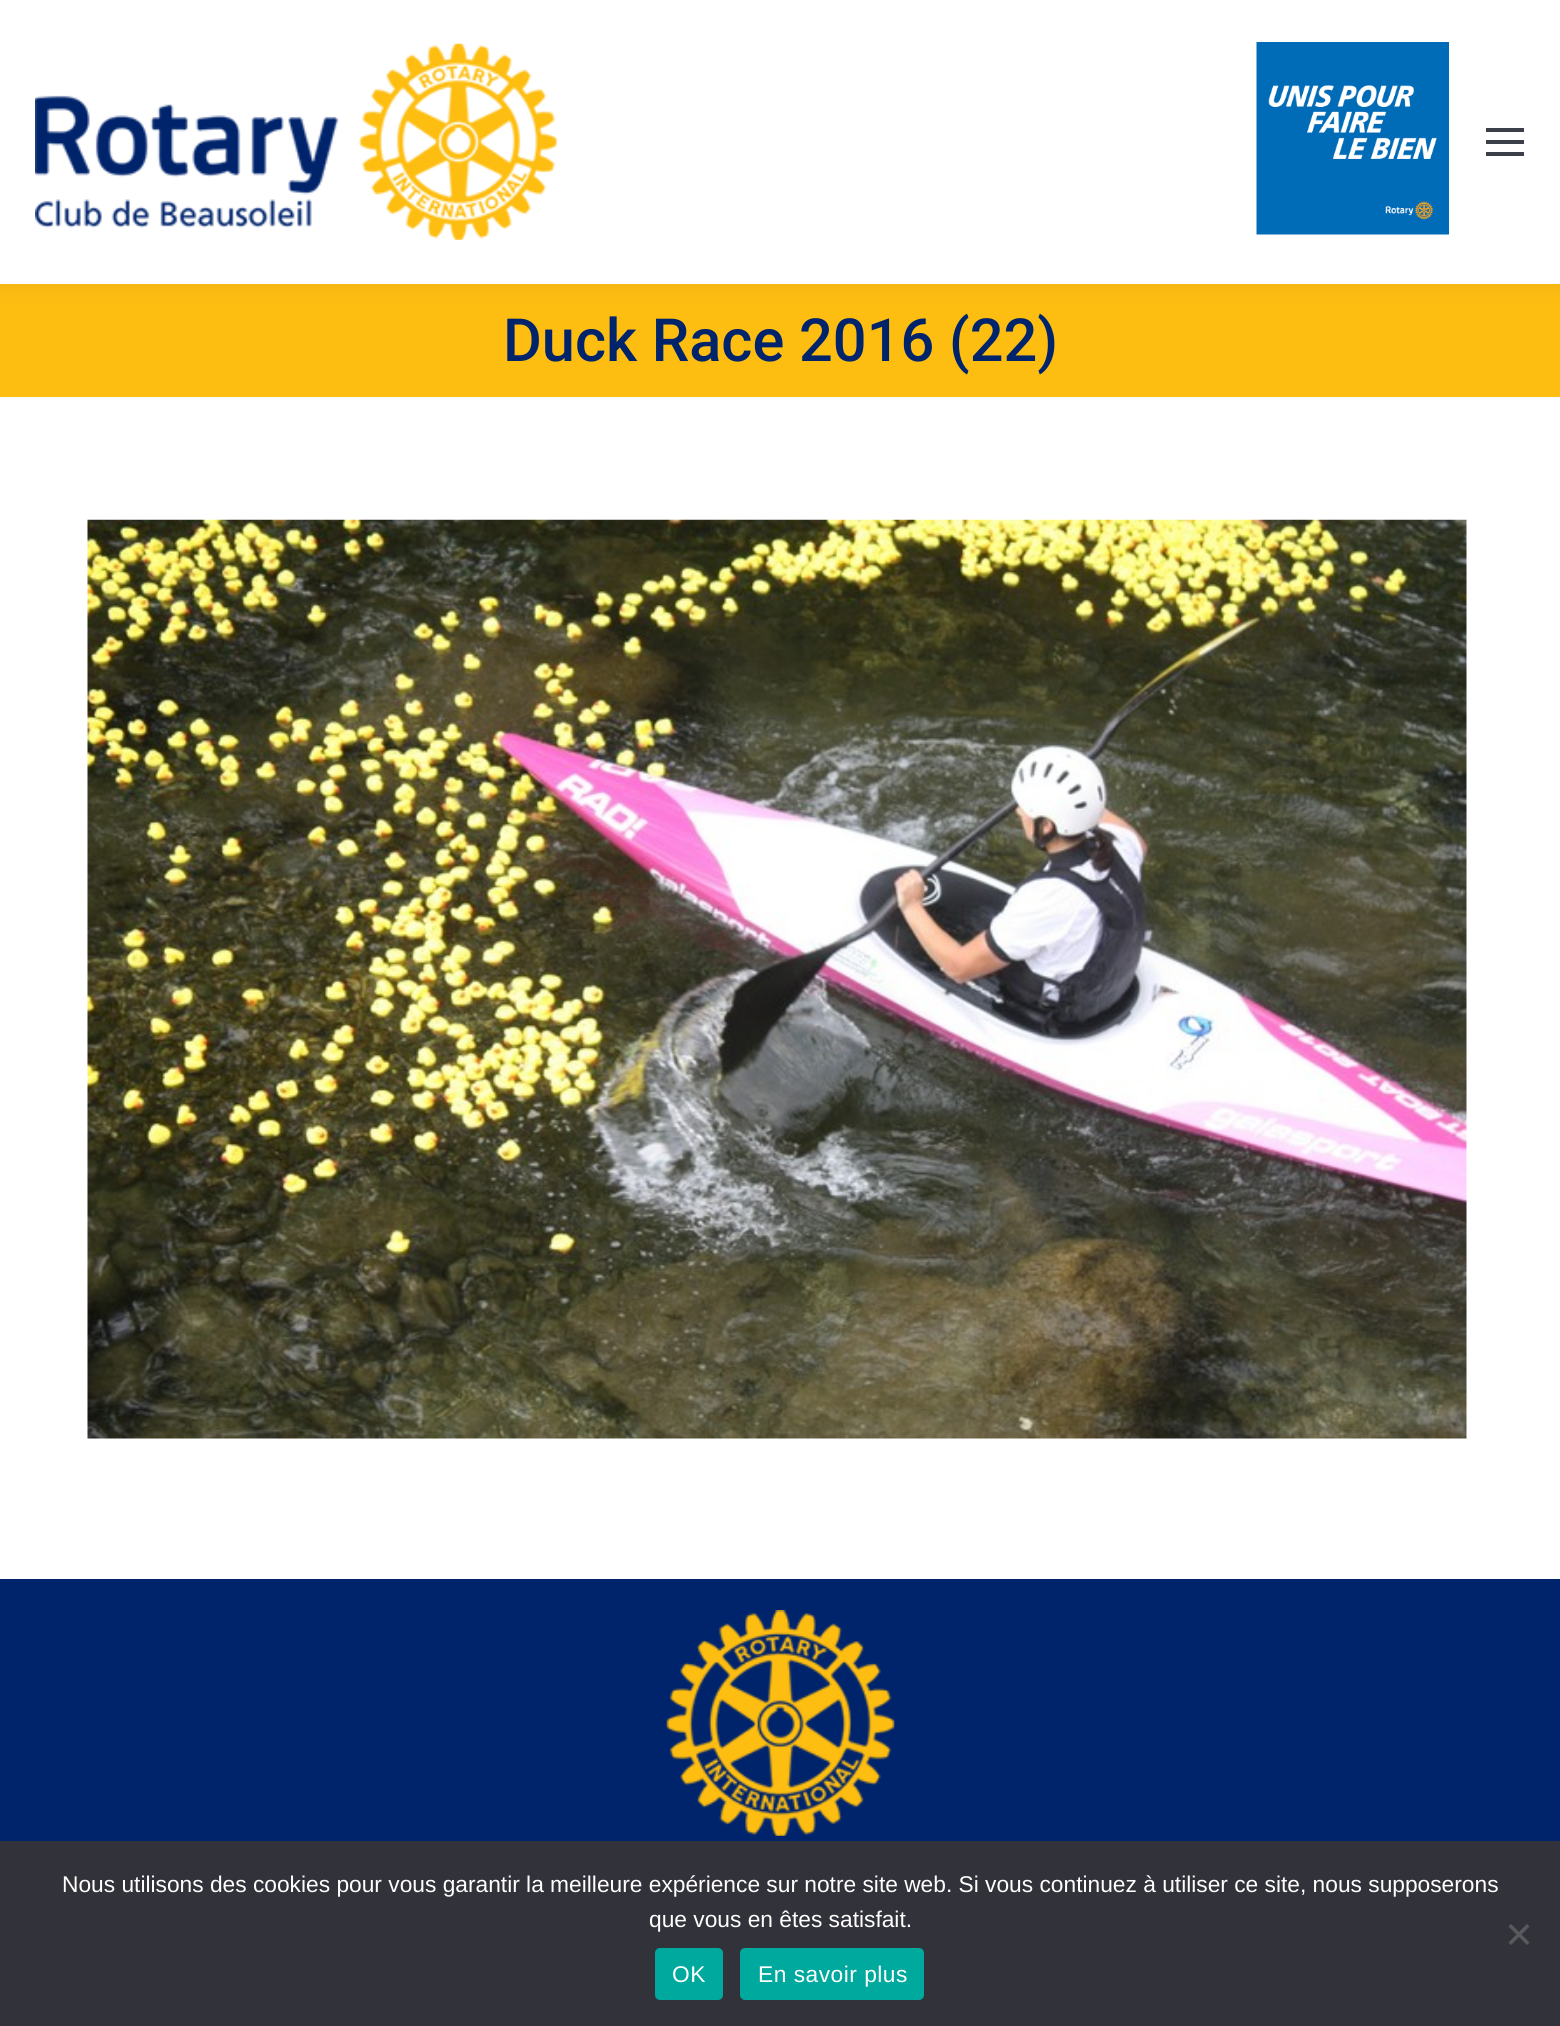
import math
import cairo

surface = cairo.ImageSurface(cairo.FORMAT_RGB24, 1560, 2026)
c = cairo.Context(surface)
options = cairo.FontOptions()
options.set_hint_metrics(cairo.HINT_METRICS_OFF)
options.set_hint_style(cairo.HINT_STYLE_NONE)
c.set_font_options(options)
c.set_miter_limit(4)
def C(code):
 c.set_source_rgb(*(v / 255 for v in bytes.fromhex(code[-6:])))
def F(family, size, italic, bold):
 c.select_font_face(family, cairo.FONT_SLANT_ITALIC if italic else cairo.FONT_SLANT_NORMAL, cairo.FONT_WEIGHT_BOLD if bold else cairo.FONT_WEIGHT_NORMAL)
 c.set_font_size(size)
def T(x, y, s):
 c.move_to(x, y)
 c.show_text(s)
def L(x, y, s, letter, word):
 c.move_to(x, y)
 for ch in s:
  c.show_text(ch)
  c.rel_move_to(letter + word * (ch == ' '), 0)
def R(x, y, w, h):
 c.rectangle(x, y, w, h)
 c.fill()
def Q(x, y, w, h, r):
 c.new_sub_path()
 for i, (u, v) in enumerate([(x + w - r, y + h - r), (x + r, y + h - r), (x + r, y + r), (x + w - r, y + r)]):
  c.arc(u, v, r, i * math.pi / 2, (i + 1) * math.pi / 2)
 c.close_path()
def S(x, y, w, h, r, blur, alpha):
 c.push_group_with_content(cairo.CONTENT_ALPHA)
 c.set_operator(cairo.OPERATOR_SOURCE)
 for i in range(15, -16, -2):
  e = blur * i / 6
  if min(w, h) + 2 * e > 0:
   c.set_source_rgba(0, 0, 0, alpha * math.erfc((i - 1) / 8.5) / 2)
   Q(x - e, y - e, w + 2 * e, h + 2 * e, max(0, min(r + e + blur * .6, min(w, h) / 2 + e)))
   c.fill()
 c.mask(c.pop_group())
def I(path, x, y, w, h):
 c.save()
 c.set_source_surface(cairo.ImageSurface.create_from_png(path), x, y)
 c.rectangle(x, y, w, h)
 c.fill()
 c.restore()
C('ffffff')
c.paint()
C('febd11')
R(0,284,1560,113)
C('000000')
S(-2,-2,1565,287,0,13,.07)
C('ffffff')
R(0,0,1560,284)
I('1.png',35,43,522,197)
I('2.png',1256,42,193,193)
C('3b3f4a')
R(1486,128,38,4)
R(1486,140,38,4)
R(1486,152,38,4)
F('Roboto Medium',59.5,0,0)
C('00246c')
T(503,361,'Duck Race 2016 (22)')
I('3.png',87,519,1380,920)
R(0,1579,1560,262)
I('4.png',666,1610,229,226)
C('32323a')
R(0,1841,1560,185)
F('Liberation Sans',22.75,0,0)
C('ffffff')
T(62,1892,'Nous utilisons des cookies pour vous garantir la meilleure expérience sur notre site web. Si vous continuez à utiliser ce site, nous supposerons')
T(649,1927,'que vous en êtes satisfait.')
C('59595d')
c.new_path()
c.move_to(1527,1924)
c.line_to(1529.5,1926.5)
c.line_to(1511,1945)
c.line_to(1508.5,1942.5)
c.close_path()
c.fill()
c.new_path()
c.move_to(1508.5,1926.5)
c.line_to(1511,1924)
c.line_to(1529.5,1942.5)
c.line_to(1527,1945)
c.close_path()
c.fill()
C('00a99d')
Q(655,1948,68,52,5)
c.fill()
C('ffffff')
L(672,1982,'OK',.5,0)
C('00a99d')
Q(740,1948,184,52,5)
c.fill()
C('ffffff')
L(758,1982,'En savoir plus',.5,0)
surface.write_to_png('o.png')
